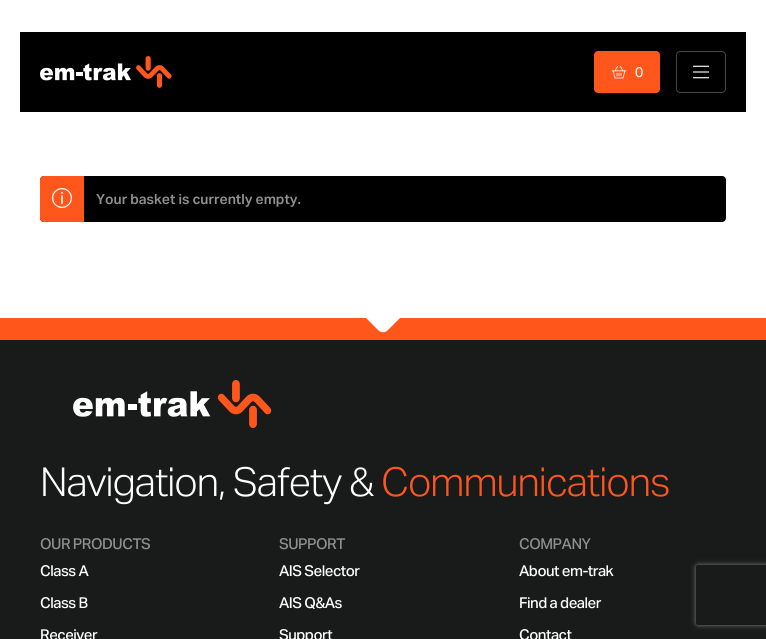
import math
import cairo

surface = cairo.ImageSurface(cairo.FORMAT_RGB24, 766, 639)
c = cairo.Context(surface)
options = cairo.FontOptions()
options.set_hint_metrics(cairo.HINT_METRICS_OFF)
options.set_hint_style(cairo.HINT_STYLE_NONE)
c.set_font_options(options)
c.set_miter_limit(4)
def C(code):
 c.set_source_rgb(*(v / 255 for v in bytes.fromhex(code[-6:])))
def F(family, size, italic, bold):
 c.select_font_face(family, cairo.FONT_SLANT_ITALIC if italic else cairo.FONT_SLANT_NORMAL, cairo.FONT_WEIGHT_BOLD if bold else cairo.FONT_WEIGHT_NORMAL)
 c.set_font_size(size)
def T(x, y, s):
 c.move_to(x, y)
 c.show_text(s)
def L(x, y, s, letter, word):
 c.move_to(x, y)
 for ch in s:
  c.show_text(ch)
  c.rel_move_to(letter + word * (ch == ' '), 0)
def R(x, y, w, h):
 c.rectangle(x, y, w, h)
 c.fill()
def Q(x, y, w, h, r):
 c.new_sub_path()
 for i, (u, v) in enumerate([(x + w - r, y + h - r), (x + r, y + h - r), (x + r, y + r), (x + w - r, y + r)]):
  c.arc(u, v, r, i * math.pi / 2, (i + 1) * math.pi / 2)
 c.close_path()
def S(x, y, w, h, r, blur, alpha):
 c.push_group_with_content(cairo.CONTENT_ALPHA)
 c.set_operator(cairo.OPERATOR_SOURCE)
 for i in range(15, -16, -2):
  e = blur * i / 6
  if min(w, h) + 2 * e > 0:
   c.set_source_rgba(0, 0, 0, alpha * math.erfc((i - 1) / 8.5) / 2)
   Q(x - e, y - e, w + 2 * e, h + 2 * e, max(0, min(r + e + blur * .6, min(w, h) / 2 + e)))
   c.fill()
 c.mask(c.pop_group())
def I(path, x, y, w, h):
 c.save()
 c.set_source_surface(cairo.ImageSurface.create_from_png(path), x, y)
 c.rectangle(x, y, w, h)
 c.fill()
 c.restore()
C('ffffff')
c.paint()
C('000000')
R(20,32,726,80)
I('1.png',40,56,132,32)
C('ff561c')
Q(594.5,51.5,65,41,3.5)
c.fill_preserve()
c.set_line_width(1)
c.stroke()
I('2.png',611,65,16,14)
F('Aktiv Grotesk',14,0,0)
C('ffffff')
L(635,77,'0',-.5,0)
Q(676.5,51.5,49,41,3.5)
C('464646')
c.stroke()
I('3.png',693,65,16,14)
C('000000')
Q(40,176,686,46,4)
c.fill()
C('ff561c')
c.new_path()
c.move_to(44,176)
c.line_to(84,176)
c.line_to(84,222)
c.line_to(44,222)
c.curve_to(42,222,40,220,40,218)
c.line_to(40,180)
c.curve_to(40,178,42,176,44,176)
c.close_path()
c.fill()
I('4.png',52,188,20,20)
F('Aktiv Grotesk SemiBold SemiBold',14,0,0)
C('8f8f8f')
T(96,204,'Your basket is currently empty.')
C('191b1a')
R(0,340,766,299)
C('ff561c')
c.new_path()
c.move_to(388,330)
c.curve_to(385,333,381,333,378,330)
c.line_to(366,318)
c.line_to(-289,318)
c.line_to(-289,340)
c.line_to(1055,340)
c.line_to(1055,318)
c.line_to(400,318)
c.close_path()
c.fill()
I('5.png',73,380,199,48)
F('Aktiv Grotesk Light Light',40,0,0)
C('ffffff')
L(40,496,'Navigation, Safety &',-1,0)
C('ff561c')
L(381,496,'Communications',-1,0)
F('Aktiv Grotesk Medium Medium',15,0,0)
C('8f8f8f')
L(40,549,'OUR PRODUCTS',-.5,0)
C('ffffff')
L(40,576,'Class A',-.5,0)
L(40,608,'Class B',-.5,0)
L(40,640,'Receiver',-.5,0)
C('8f8f8f')
L(279,549,'SUPPORT',-.5,0)
C('ffffff')
L(279,576,'AIS Selector',-.5,0)
L(279,608,'AIS Q&As',-.5,0)
L(279,640,'Support',-.5,0)
C('8f8f8f')
L(519,549,'COMPANY',-.5,0)
C('ffffff')
L(519,576,'About em-trak',-.5,0)
L(519,608,'Find a dealer',-.5,0)
L(519,640,'Contact',-.5,0)
c.save()
c.set_fill_rule(cairo.FILL_RULE_EVEN_ODD)
c.new_path()
c.move_to(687,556)
c.line_to(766,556)
c.line_to(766,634)
c.line_to(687,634)
c.close_path()
c.move_to(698,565)
c.line_to(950,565)
c.curve_to(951,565,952,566,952,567)
c.line_to(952,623)
c.curve_to(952,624,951,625,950,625)
c.line_to(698,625)
c.curve_to(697,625,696,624,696,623)
c.line_to(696,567)
c.curve_to(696,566,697,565,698,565)
c.close_path()
c.clip()
C('808080')
S(696,565,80,60,2,2.5,1)
c.restore()
surface.write_to_png('o.png')
